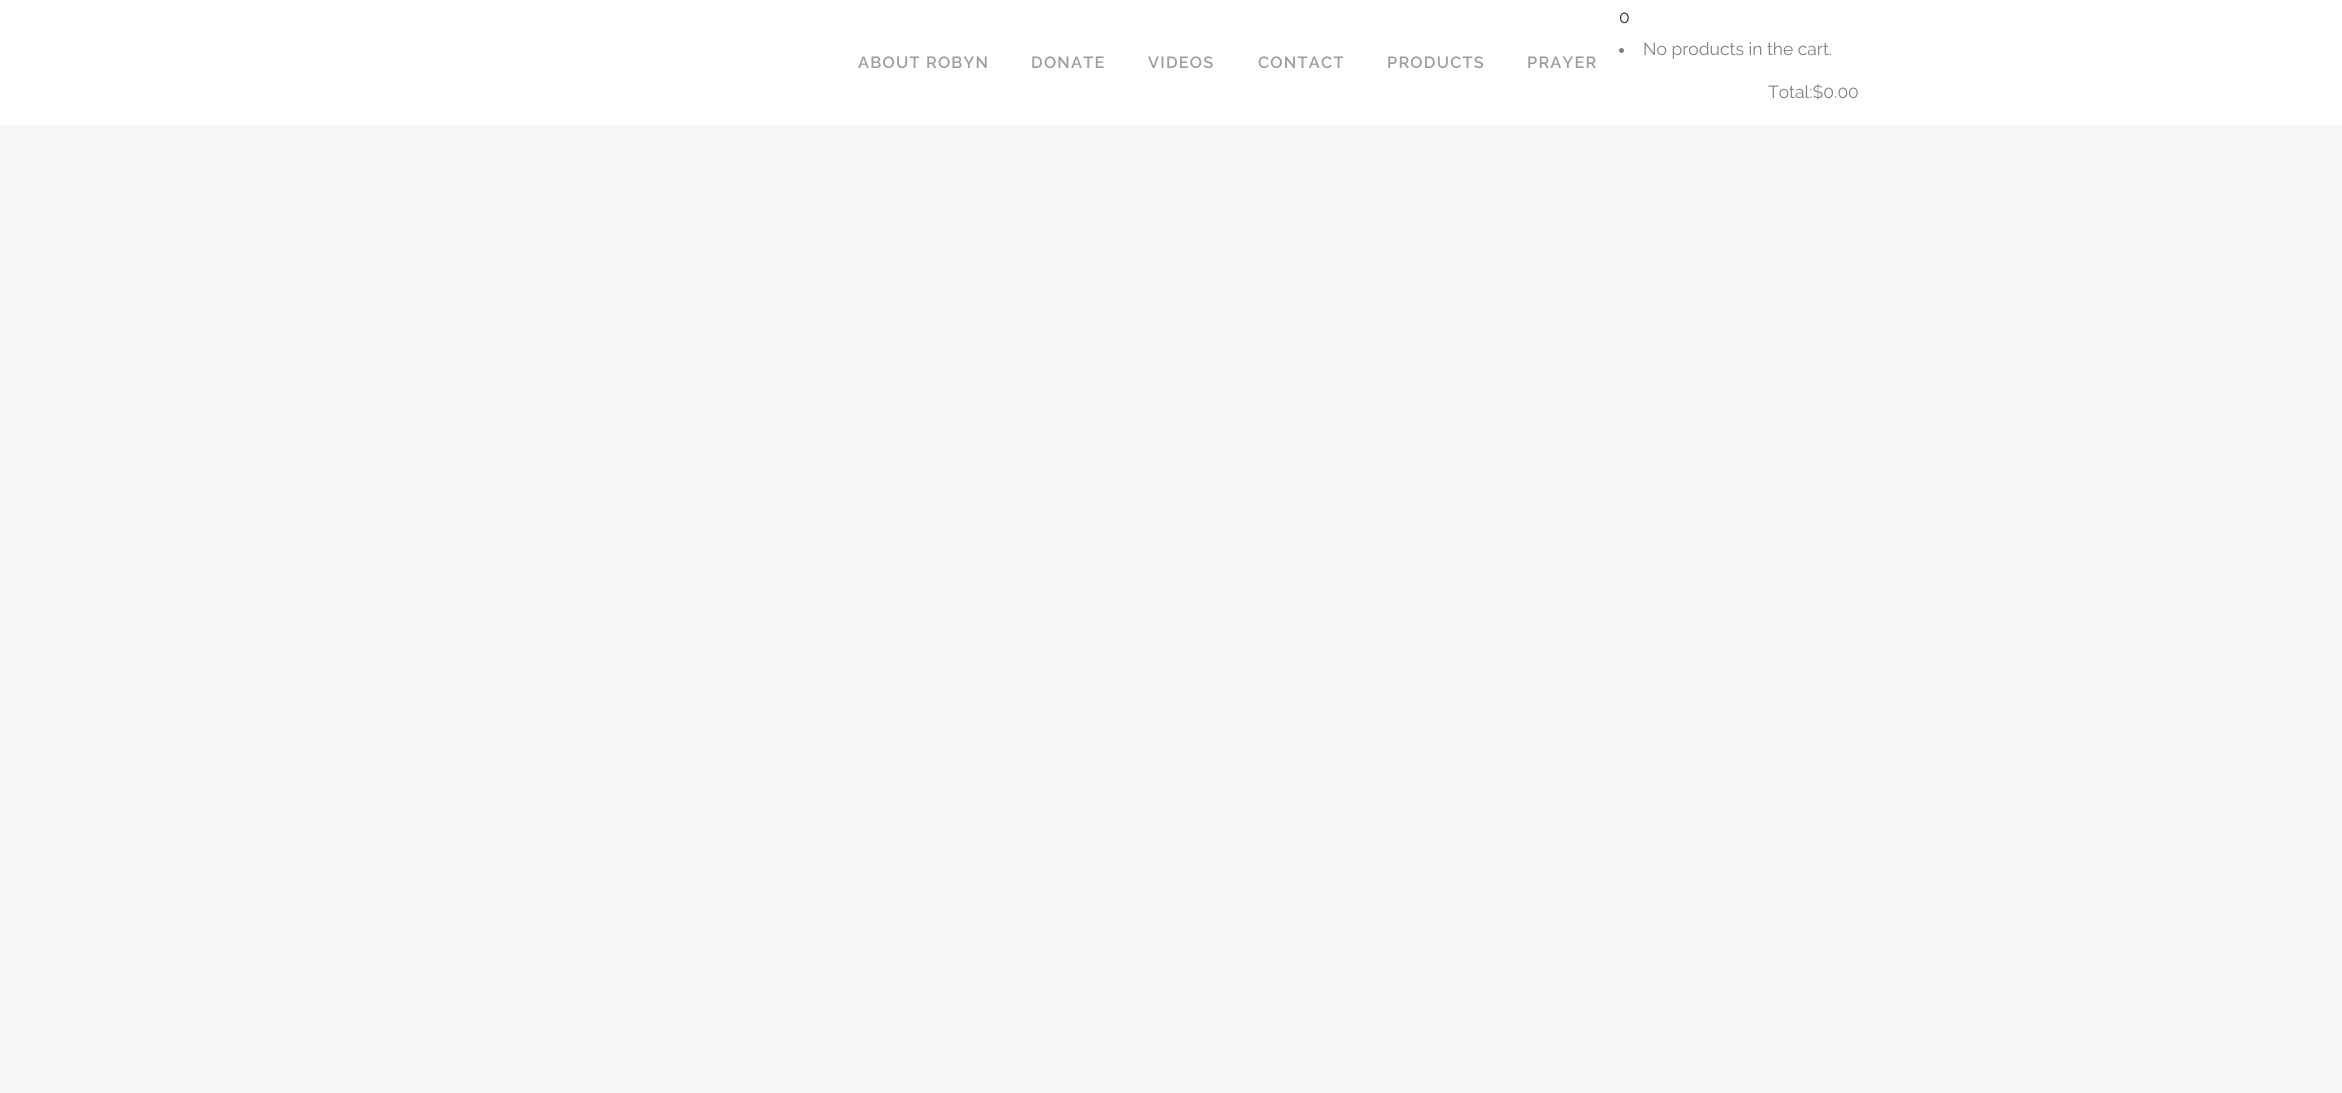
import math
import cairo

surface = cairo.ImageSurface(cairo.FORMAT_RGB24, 2342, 1093)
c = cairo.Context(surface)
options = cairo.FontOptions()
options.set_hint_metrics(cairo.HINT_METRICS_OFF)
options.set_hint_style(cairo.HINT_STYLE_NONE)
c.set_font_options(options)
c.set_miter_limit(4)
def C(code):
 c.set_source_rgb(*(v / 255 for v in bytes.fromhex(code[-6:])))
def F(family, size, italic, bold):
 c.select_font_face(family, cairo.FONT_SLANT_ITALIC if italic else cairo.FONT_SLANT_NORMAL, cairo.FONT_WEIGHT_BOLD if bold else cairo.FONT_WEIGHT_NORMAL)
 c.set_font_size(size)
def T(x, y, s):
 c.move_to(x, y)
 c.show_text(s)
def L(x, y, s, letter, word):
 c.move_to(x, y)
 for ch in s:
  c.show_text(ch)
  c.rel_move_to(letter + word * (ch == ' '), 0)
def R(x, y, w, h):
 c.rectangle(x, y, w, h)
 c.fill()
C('f6f6f6')
c.paint()
C('ffffff')
R(0,0,2342,125)
F('Raleway SemiBold',16.25,0,0)
C('9d9d9d')
L(858,68,'ABOUT ROBYN',1.25,0)
L(1031,68,'DONATE',1.25,0)
L(1148,68,'VIDEOS',1.25,0)
L(1258,68,'CONTACT',1.25,0)
L(1387,68,'PRODUCTS',1.25,0)
L(1527,68,'PRAYER',1.25,0)
F('Raleway',17.5,0,0)
C('303030')
T(1619,23,'0')
C('818181')
c.new_path()
c.arc(1621.5,50.5,2.5,0,2 * math.pi)
c.fill()
T(1643,55,'No products in the cart.')
T(1768,98,'Total:$0.00')
surface.write_to_png('o.png')
